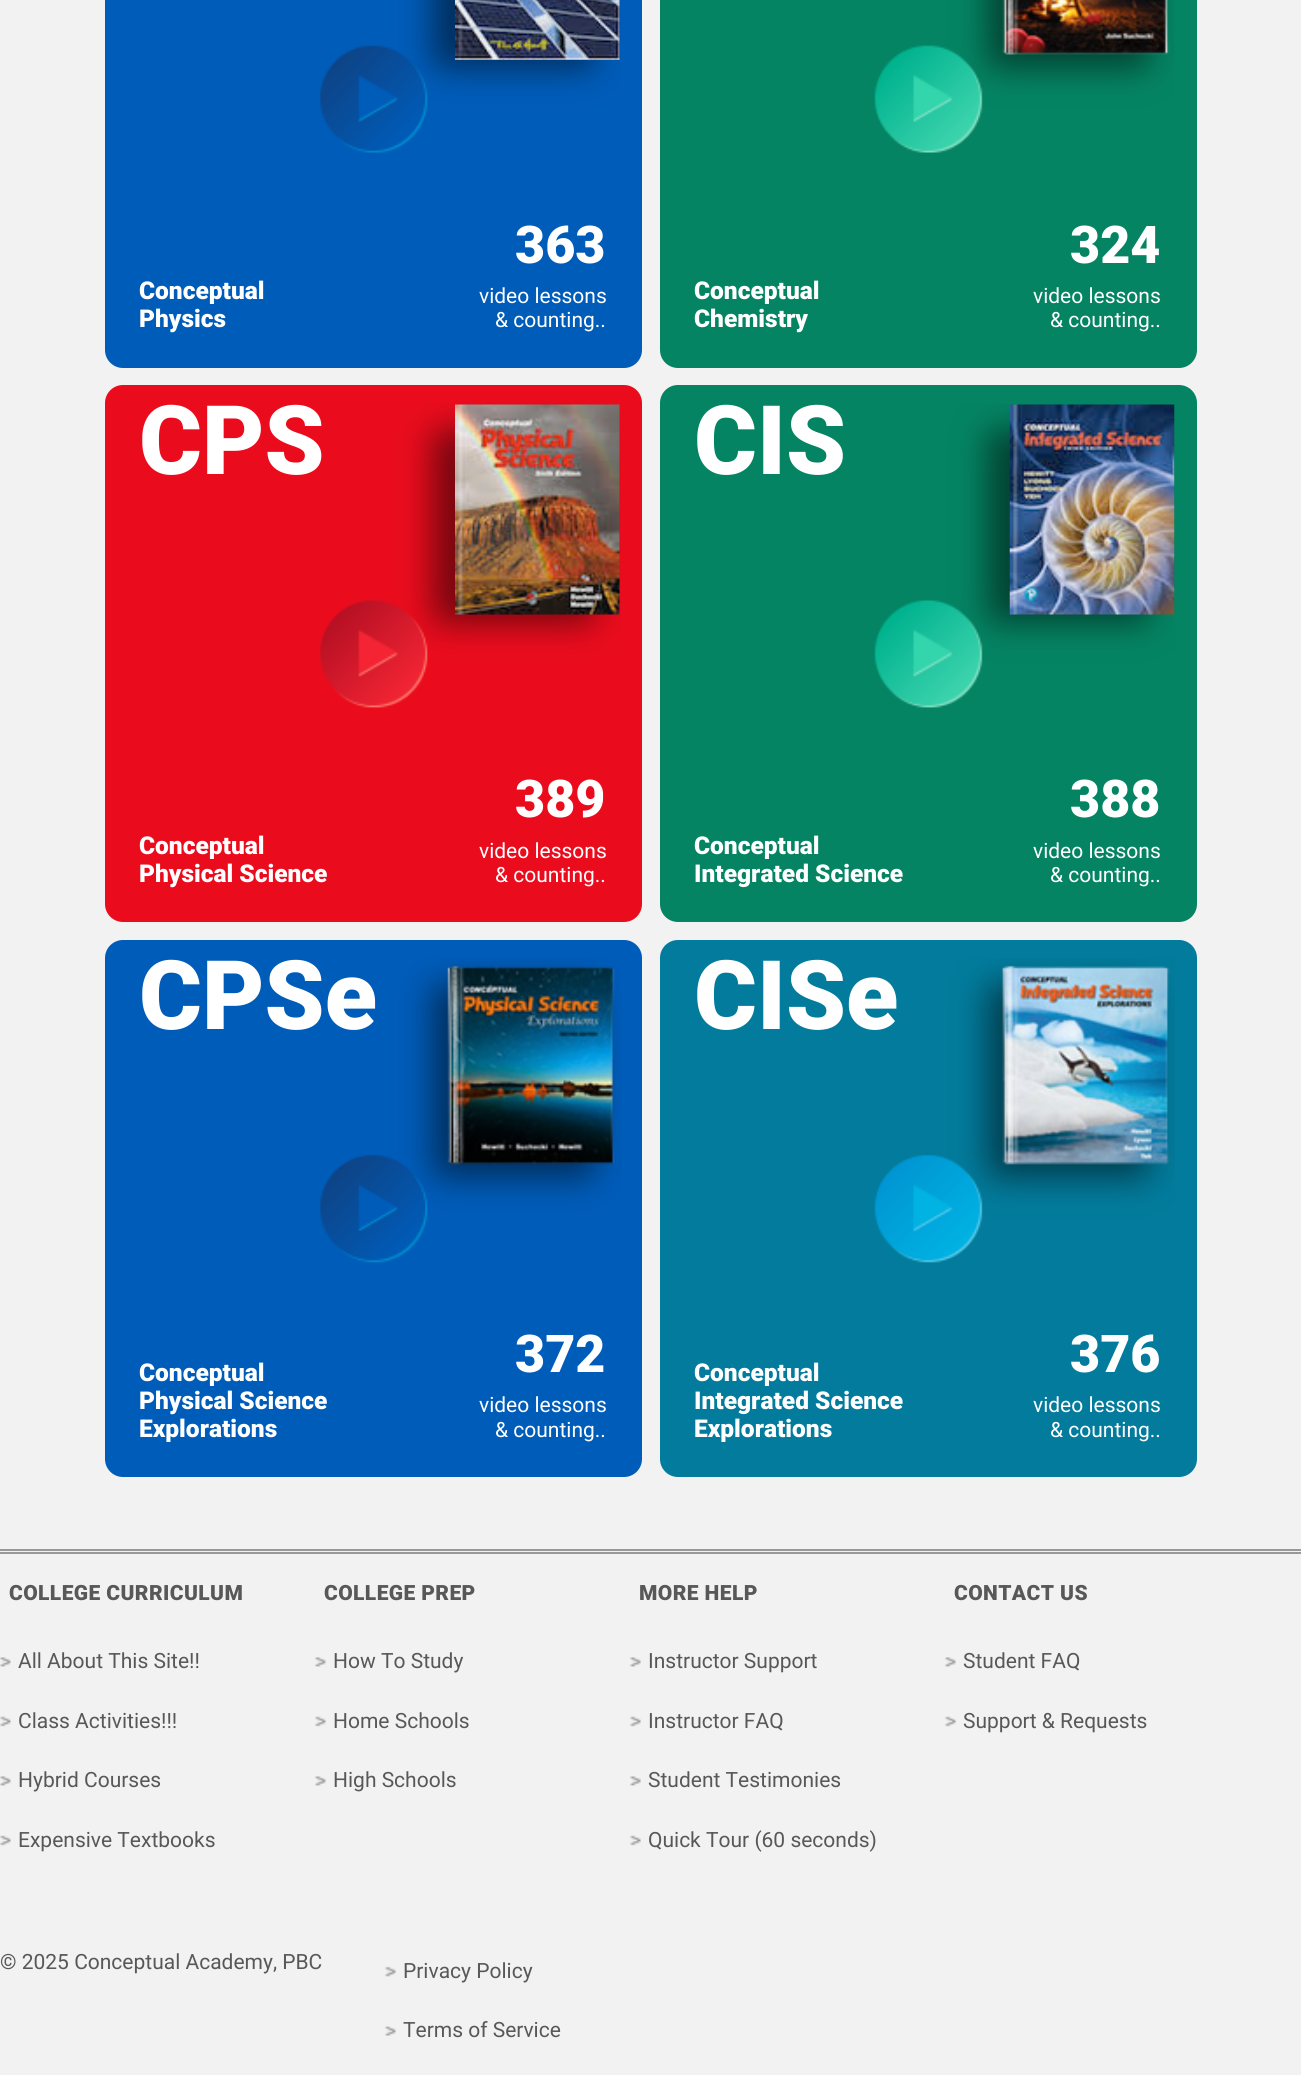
import math
import cairo

surface = cairo.ImageSurface(cairo.FORMAT_RGB24, 1301, 2075)
c = cairo.Context(surface)
options = cairo.FontOptions()
options.set_hint_metrics(cairo.HINT_METRICS_OFF)
options.set_hint_style(cairo.HINT_STYLE_NONE)
c.set_font_options(options)
c.set_miter_limit(4)
def C(code):
 c.set_source_rgb(*(v / 255 for v in bytes.fromhex(code[-6:])))
def F(family, size, italic, bold):
 c.select_font_face(family, cairo.FONT_SLANT_ITALIC if italic else cairo.FONT_SLANT_NORMAL, cairo.FONT_WEIGHT_BOLD if bold else cairo.FONT_WEIGHT_NORMAL)
 c.set_font_size(size)
def T(x, y, s):
 c.move_to(x, y)
 c.show_text(s)
def L(x, y, s, letter, word):
 c.move_to(x, y)
 for ch in s:
  c.show_text(ch)
  c.rel_move_to(letter + word * (ch == ' '), 0)
def R(x, y, w, h):
 c.rectangle(x, y, w, h)
 c.fill()
def Q(x, y, w, h, r):
 c.new_sub_path()
 for i, (u, v) in enumerate([(x + w - r, y + h - r), (x + r, y + h - r), (x + r, y + r), (x + w - r, y + r)]):
  c.arc(u, v, r, i * math.pi / 2, (i + 1) * math.pi / 2)
 c.close_path()
def I(path, x, y, w, h):
 c.save()
 c.set_source_surface(cairo.ImageSurface.create_from_png(path), x, y)
 c.rectangle(x, y, w, h)
 c.fill()
 c.restore()
C('f2f2f2')
c.paint()
C('005cb9')
Q(105,-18,537,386,18)
c.fill()
I('1.png',320,0,301,153)
F('Roboto Black',24.5,0,0)
C('ffffff')
T(139,299,'Conceptual')
T(139,327,'Physics')
F('Roboto Black',52,0,0)
T(515,263,'363')
F('Roboto',21,0,0)
T(479,303,'video lessons')
T(495,327,'& counting..')
C('048463')
Q(660,-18,537,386,18)
c.fill()
I('2.png',874,0,300,153)
F('Roboto Black',24.5,0,0)
C('ffffff')
T(694,299,'Conceptual')
T(694,327,'Chemistry')
F('Roboto Black',52,0,0)
T(1070,263,'324')
F('Roboto',21,0,0)
T(1033,303,'video lessons')
T(1050,327,'& counting..')
C('ea0c1d')
Q(105,385,537,537,18)
c.fill()
I('3.png',320,403,301,305)
F('Roboto Black',96,0,0)
C('ffffff')
T(139,474,'CPS')
F('Roboto Black',24.5,0,0)
T(139,854,'Conceptual')
T(139,882,'Physical Science')
F('Roboto Black',52,0,0)
T(515,817,'389')
F('Roboto',21,0,0)
T(479,858,'video lessons')
T(495,882,'& counting..')
C('048463')
Q(660,385,537,537,18)
c.fill()
I('4.png',874,404,301,304)
F('Roboto Black',96,0,0)
C('ffffff')
T(694,474,'CIS')
F('Roboto Black',24.5,0,0)
T(694,854,'Conceptual')
T(694,882,'Integrated Science')
F('Roboto Black',52,0,0)
T(1070,817,'388')
F('Roboto',21,0,0)
T(1033,858,'video lessons')
T(1050,882,'& counting..')
C('005cb9')
Q(105,940,537,537,18)
c.fill()
I('5.png',320,957,301,306)
F('Roboto Black',96,0,0)
C('ffffff')
T(139,1029,'CPSe')
F('Roboto Black',24.5,0,0)
T(139,1381,'Conceptual')
T(139,1409,'Physical Science')
T(139,1437,'Explorations')
F('Roboto Black',52,0,0)
T(515,1372,'372')
F('Roboto',21,0,0)
T(479,1412,'video lessons')
T(495,1437,'& counting..')
C('027b9c')
Q(660,940,537,537,18)
c.fill()
I('6.png',874,958,301,305)
F('Roboto Black',96,0,0)
C('ffffff')
T(694,1029,'CISe')
F('Roboto Black',24.5,0,0)
T(694,1381,'Conceptual')
T(694,1409,'Integrated Science')
T(694,1437,'Explorations')
F('Roboto Black',52,0,0)
T(1070,1372,'376')
F('Roboto',21,0,0)
T(1033,1412,'video lessons')
T(1050,1437,'& counting..')
C('999999')
R(0,1549,1301,2)
R(0,1552,1301,2)
F('Roboto Black',21,0,0)
C('585858')
L(9,1600,'COLLEGE CURRICULUM',.4,0)
I('7.png',0,1657,11,10)
F('Roboto',21,0,0)
T(18,1668,'All About This Site!!')
I('8.png',0,1716,11,11)
T(18,1728,'Class Activities!!!')
I('7.png',0,1776,11,10)
T(18,1787,'Hybrid Courses')
I('8.png',0,1835,11,11)
T(18,1847,'Expensive Textbooks')
F('Roboto Black',21,0,0)
L(324,1600,'COLLEGE PREP',.4,0)
I('7.png',315,1657,11,10)
F('Roboto',21,0,0)
T(333,1668,'How To Study')
I('8.png',315,1716,11,11)
T(333,1728,'Home Schools')
I('7.png',315,1776,11,10)
T(333,1787,'High Schools')
F('Roboto Black',21,0,0)
L(639,1600,'MORE HELP',.4,0)
I('9.png',630,1657,11,10)
F('Roboto',21,0,0)
T(648,1668,'Instructor Support')
I('10.png',630,1716,11,11)
T(648,1728,'Instructor FAQ')
I('9.png',630,1776,11,10)
T(648,1787,'Student Testimonies')
I('10.png',630,1835,11,11)
T(648,1847,'Quick Tour (60 seconds)')
F('Roboto Black',21,0,0)
L(954,1600,'CONTACT US',.4,0)
I('9.png',945,1657,11,10)
F('Roboto',21,0,0)
T(963,1668,'Student FAQ')
I('10.png',945,1716,11,11)
T(963,1728,'Support & Requests')
T(0,1969,'© 2025 Conceptual Academy, PBC')
I('11.png',385,1966,11,11)
T(403,1978,'Privacy Policy')
I('12.png',385,2026,11,10)
T(403,2037,'Terms of Service')
surface.write_to_png('o.png')
